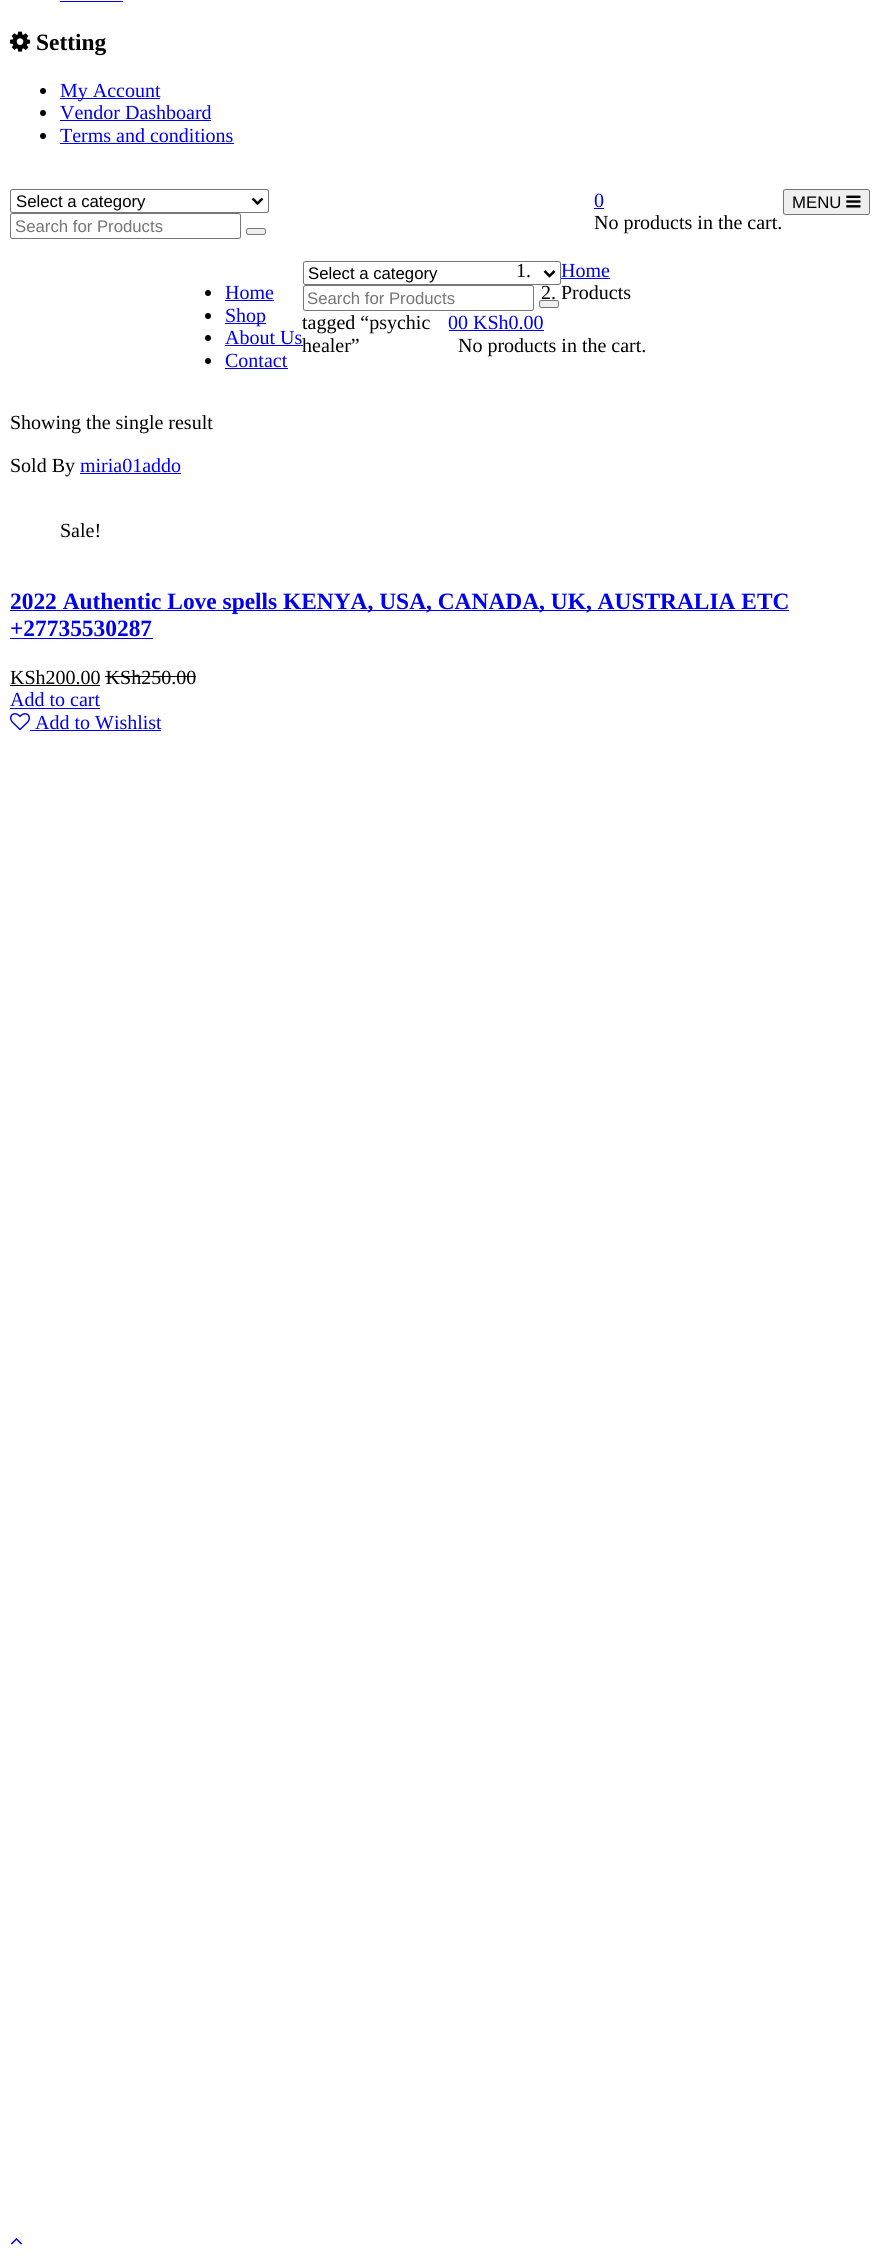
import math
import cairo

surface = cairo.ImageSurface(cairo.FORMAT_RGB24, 879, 2262)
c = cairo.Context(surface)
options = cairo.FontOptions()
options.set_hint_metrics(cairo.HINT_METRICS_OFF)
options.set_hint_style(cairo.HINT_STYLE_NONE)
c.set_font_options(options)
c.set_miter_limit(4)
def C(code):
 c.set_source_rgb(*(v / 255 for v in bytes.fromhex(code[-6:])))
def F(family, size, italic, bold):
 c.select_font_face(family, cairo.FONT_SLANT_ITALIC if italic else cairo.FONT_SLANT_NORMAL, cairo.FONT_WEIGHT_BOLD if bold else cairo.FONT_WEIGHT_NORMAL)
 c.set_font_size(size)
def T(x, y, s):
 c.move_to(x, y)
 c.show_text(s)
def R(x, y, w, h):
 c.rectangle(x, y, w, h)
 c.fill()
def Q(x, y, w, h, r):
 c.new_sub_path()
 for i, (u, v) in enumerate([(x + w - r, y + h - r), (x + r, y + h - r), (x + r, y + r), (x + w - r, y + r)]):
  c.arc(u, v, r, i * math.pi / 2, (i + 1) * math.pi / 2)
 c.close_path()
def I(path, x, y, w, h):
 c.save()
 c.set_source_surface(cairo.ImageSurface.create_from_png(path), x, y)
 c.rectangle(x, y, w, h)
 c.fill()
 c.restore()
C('ffffff')
c.paint()
C('0000ee')
R(60,1,63,1)
I('1.png',10,31,21,21)
F('Liberation Serif',23.4,0,1)
C('000000')
T(36,50,'Setting')
c.new_path()
c.arc(43,91,3,0,2 * math.pi)
c.fill()
C('0000ee')
R(60,98,100,1)
F('Liberation Serif',20,0,0)
T(60,97,'My Account')
C('000000')
c.new_path()
c.arc(43,113,3,0,2 * math.pi)
c.fill()
C('0000ee')
T(60,119,'Vendor Dashboard')
R(60,120,151,1)
C('000000')
c.new_path()
c.arc(43,136,3,0,2 * math.pi)
c.fill()
C('0000ee')
T(60,142,'Terms and conditions')
R(60,143,174,1)
Q(10.5,189.5,258,23,2)
C('767676')
c.set_line_width(1)
c.stroke()
c.new_path()
c.move_to(252.5,198.5)
c.line_to(257.5,203.5)
c.line_to(262.5,198.5)
C('000000')
c.set_line_width(2.5)
c.stroke()
F('Liberation Sans',16.75,0,0)
T(16,207,'Select a category')
Q(10.5,213.5,230,25,2)
C('767676')
c.set_line_width(1)
c.stroke()
C('757575')
T(15,232,'Search for Products')
C('efefef')
Q(246.5,228.5,19,6,2)
c.fill_preserve()
C('767676')
c.stroke()
F('Liberation Serif',20,0,0)
C('0000ee')
T(594,207,'0')
R(594,208,10,1)
C('000000')
T(594,229,'No products in the cart.')
C('efefef')
Q(783.5,189.5,86,25,2)
c.fill_preserve()
C('767676')
c.stroke()
F('Liberation Sans',16.75,0,0)
C('000000')
T(792,208,'MENU')
I('2.png',846,195,15,13)
Q(303.5,261.5,257,23,2)
C('767676')
c.stroke()
F('Liberation Serif',20,0,0)
C('000000')
T(516,277,'1.')
C('0000ee')
T(561,277,'Home')
R(561,278,49,1)
C('000000')
T(541,299,'2. Products')
T(302,329,'tagged “psychic')
C('0000ee')
R(225,345,78,1)
C('000000')
T(302,352,'healer”')
T(10,429,'Showing the single result')
T(10,472,'Sold By')
C('0000ee')
T(80,472,'miria01addo')
R(80,473,101,1)
C('000000')
T(60,537,'Sale!')
C('0000ee')
R(10,610,779,1)
F('Liberation Serif',23.4,0,1)
T(10,609,'2022 Authentic Love spells KENYA, USA, CANADA, UK, AUSTRALIA ETC')
T(10,636,'+27735530287')
R(10,638,143,1)
F('Liberation Serif',20,0,0)
C('000000')
T(10,684,'KSh200.00 KSh250.00')
R(10,685,90,1)
R(105,676,91,1)
C('0000ee')
T(10,706,'Add to cart')
R(10,708,90,1)
I('3.png',10,713,20,18)
T(35,729,'Add to Wishlist')
R(30,730,131,1)
C('000000')
c.new_path()
c.arc(208,293,3,0,2 * math.pi)
c.fill()
C('0000ee')
T(225,299,'Home')
R(225,300,49,1)
C('000000')
c.new_path()
c.arc(208,316,3,0,2 * math.pi)
c.fill()
C('0000ee')
R(225,323,41,1)
T(225,322,'Shop')
C('000000')
c.new_path()
c.arc(208,338,3,0,2 * math.pi)
c.fill()
C('0000ee')
T(225,344,'About Us')
C('000000')
c.new_path()
c.arc(208,361,3,0,2 * math.pi)
c.fill()
C('0000ee')
T(225,367,'Contact')
R(225,368,63,1)
c.new_path()
c.move_to(544.5,271)
c.line_to(549.5,276)
c.line_to(554.5,271)
C('000000')
c.set_line_width(2.5)
c.stroke()
F('Liberation Sans',16.75,0,0)
T(308,279,'Select a category')
Q(303.5,285.5,230,25,2)
C('767676')
c.set_line_width(1)
c.stroke()
C('757575')
T(307,304,'Search for Products')
C('efefef')
Q(539.5,300.5,19,7,2)
c.fill_preserve()
C('767676')
c.stroke()
F('Liberation Serif',20,0,0)
C('0000ee')
T(448,329,'0')
T(458,329,'0 KSh0.00')
R(449,330,95,1)
C('000000')
T(458,352,'No products in the cart.')
I('4.png',10,2238,12,7)
surface.write_to_png('o.png')
